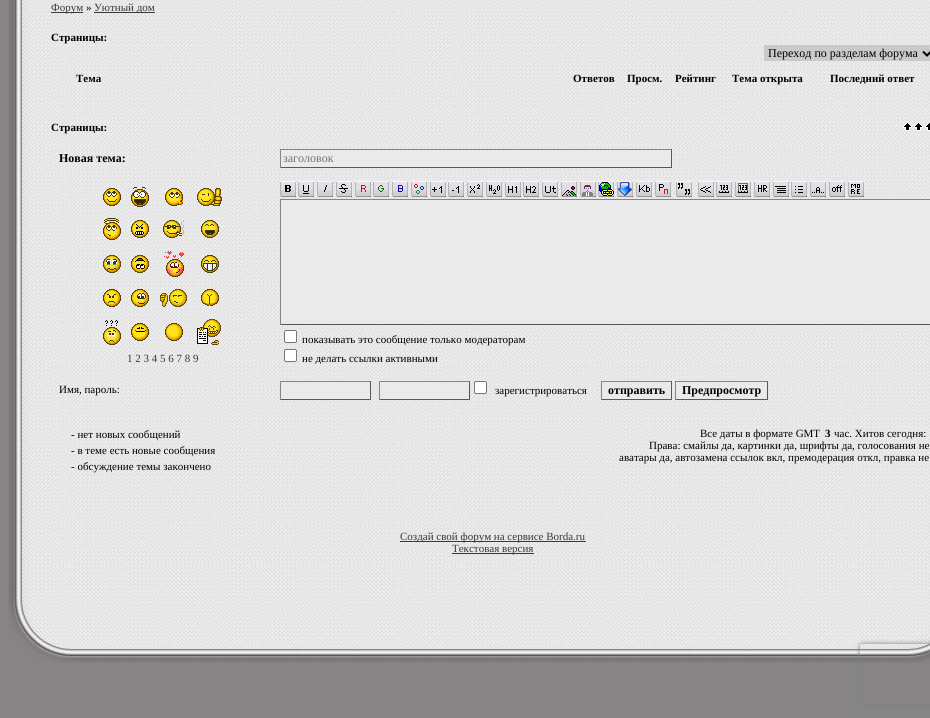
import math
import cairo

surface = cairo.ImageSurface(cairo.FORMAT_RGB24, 930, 718)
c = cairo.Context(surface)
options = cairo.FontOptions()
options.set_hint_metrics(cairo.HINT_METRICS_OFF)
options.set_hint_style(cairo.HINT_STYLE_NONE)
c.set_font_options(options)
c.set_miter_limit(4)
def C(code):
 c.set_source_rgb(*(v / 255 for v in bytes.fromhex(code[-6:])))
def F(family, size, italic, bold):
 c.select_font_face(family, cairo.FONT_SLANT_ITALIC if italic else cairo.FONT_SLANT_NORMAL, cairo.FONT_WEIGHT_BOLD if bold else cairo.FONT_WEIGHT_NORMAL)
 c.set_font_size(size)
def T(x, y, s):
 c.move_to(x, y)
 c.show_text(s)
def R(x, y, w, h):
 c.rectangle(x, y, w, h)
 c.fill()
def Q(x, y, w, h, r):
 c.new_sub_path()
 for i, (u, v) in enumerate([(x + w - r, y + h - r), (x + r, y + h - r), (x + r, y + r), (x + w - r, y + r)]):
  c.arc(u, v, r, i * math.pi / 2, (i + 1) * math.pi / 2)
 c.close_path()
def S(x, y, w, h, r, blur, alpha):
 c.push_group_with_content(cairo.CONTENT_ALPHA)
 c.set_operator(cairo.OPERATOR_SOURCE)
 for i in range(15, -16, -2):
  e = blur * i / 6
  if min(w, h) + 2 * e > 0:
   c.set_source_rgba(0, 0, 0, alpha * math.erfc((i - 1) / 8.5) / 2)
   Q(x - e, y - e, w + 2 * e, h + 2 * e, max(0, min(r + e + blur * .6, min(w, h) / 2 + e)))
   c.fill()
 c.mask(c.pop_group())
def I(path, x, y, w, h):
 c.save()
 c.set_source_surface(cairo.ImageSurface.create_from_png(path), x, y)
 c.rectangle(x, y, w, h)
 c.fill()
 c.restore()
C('868485')
c.paint()
I('1.png',8,0,922,566)
C('3a3939')
R(51,12,32,1)
F('Liberation Serif',11,0,0)
T(51,11,'Форум')
C('000000')
T(86,11,'»')
C('3a3939')
R(94,12,61,1)
T(94,11,'Уютный дом')
F('Liberation Serif',11,0,1)
C('000000')
T(51,41,'Страницы:')
C('ccc9ca')
R(764,45,166,16)
c.new_path()
c.move_to(923,51.5)
c.line_to(927,55.5)
c.line_to(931,51.5)
C('000000')
c.stroke()
F('Liberation Serif',12,0,0)
T(768,57,'Переход по разделам форума')
F('Liberation Serif',11,0,1)
T(76,82,'Тема')
T(573,82,'Ответов')
T(627,82,'Просм.')
T(675,82,'Рейтинг')
T(732,82,'Тема открыта')
T(830,82,'Последний ответ')
T(51,131,'Страницы:')
I('2.png',903,122,27,9)
F('Liberation Serif',12,0,1)
T(59,162,'Новая тема:')
C('eaeaea')
R(281,150,390,17)
C('868485')
R(280,149,392,1)
C('595859')
R(671,149,1,19)
R(280,167,392,1)
C('868485')
R(280,149,1,19)
F('Liberation Serif',12,0,0)
C('757575')
T(283,162,'заголовок')
I('3.png',103,188,18,18)
I('4.png',131,187,18,20)
I('5.png',165,188,18,18)
I('6.png',197,188,25,18)
I('7.png',103,218,18,22)
I('8.png',131,220,18,18)
I('9.png',163,220,22,18)
I('10.png',201,220,18,18)
I('11.png',103,255,18,18)
I('12.png',131,255,18,18)
I('13.png',164,251,20,26)
I('14.png',201,255,18,18)
I('15.png',103,289,18,18)
I('16.png',131,289,18,18)
I('17.png',160,289,27,18)
I('18.png',201,289,18,17)
I('19.png',103,320,18,25)
I('20.png',131,323,18,18)
I('21.png',165,323,18,18)
I('22.png',197,319,24,26)
F('Liberation Serif',11,0,0)
C('3a3939')
T(127,362,'1 2 3 4 5 6 7 8 9')
I('23.png',280,181,16,16)
I('24.png',298,181,16,16)
I('25.png',317,181,16,16)
I('26.png',336,181,16,16)
I('27.png',355,181,16,16)
I('28.png',373,181,16,16)
I('29.png',392,181,16,16)
I('30.png',411,181,16,16)
I('31.png',430,181,16,16)
I('32.png',448,181,16,16)
I('33.png',467,181,16,16)
I('34.png',486,181,16,16)
I('35.png',505,181,16,16)
I('36.png',523,181,16,16)
I('37.png',542,181,16,16)
I('38.png',561,181,16,16)
I('39.png',580,181,16,16)
I('40.png',598,181,16,16)
I('41.png',617,181,16,16)
I('42.png',636,181,16,16)
I('43.png',655,181,16,16)
I('44.png',676,181,16,16)
I('45.png',698,181,16,16)
I('46.png',716,181,16,16)
I('47.png',735,181,16,16)
I('48.png',754,181,16,16)
I('49.png',773,181,16,16)
I('50.png',791,181,16,16)
I('51.png',810,181,16,16)
I('52.png',829,181,16,16)
I('53.png',848,181,16,16)
C('eaeaea')
R(281,200,649,124)
C('868485')
R(280,199,650,1)
C('595859')
R(280,324,650,1)
C('868485')
R(280,199,1,126)
C('ffffff')
Q(284.5,330.5,12,12,1.5)
c.fill_preserve()
C('767676')
c.set_line_width(1)
c.stroke()
C('000000')
T(302,343,'показывать это сообщение только модераторам')
C('ffffff')
Q(284.5,349.5,12,12,1.5)
c.fill_preserve()
C('767676')
c.stroke()
C('000000')
T(302,362,'не делать ссылки активными')
T(59,393,'Имя, пароль:')
C('eaeaea')
R(281,382,89,17)
C('868485')
R(280,381,91,1)
C('595859')
R(370,381,1,19)
R(280,399,91,1)
C('868485')
R(280,381,1,19)
C('eaeaea')
R(380,382,89,17)
C('868485')
R(379,381,91,1)
C('595859')
R(469,381,1,19)
R(379,399,91,1)
C('868485')
R(379,381,1,19)
C('ffffff')
Q(474.5,381.5,12,12,1.5)
c.fill_preserve()
C('767676')
c.stroke()
C('000000')
T(495,394,'зарегистрироваться')
C('eaeaea')
R(602,382,69,17)
C('868485')
R(601,381,71,1)
C('595859')
R(671,381,1,19)
R(601,399,71,1)
C('868485')
R(601,381,1,19)
F('Liberation Serif',12,0,1)
C('000000')
T(608,394,'отправить')
C('eaeaea')
R(676,382,91,17)
C('868485')
R(675,381,93,1)
C('595859')
R(767,381,1,19)
R(675,399,93,1)
C('868485')
R(675,381,1,19)
C('000000')
T(682,394,'Предпросмотр')
F('Liberation Serif',11,0,0)
T(71,438,'- нет новых сообщений')
T(71,454,'- в теме есть новые сообщения')
T(71,470,'- обсуждение темы закончено')
T(700,437,'Все даты в формате GMT')
F('Liberation Serif',11,0,1)
T(825,437,'3')
F('Liberation Serif',11,0,0)
T(834,437,'час. Хитов сегодня:')
T(649,449,'Права: смайлы да, картинки да, шрифты да, голосования не')
T(619,461,'аватары да, автозамена ссылок вкл, премодерация откл, правка не')
C('3a3939')
R(400,541,186,1)
T(400,540,'Создай свой форум на сервисе Borda.ru')
R(452,553,82,1)
T(452,552,'Текстовая версия')
I('54.png',8,566,922,97)
c.save()
c.set_fill_rule(cairo.FILL_RULE_EVEN_ODD)
c.new_path()
c.move_to(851,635)
c.line_to(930,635)
c.line_to(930,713)
c.line_to(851,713)
c.close_path()
c.move_to(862,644)
c.line_to(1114,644)
c.curve_to(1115,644,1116,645,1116,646)
c.line_to(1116,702)
c.curve_to(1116,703,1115,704,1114,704)
c.line_to(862,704)
c.curve_to(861,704,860,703,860,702)
c.line_to(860,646)
c.curve_to(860,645,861,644,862,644)
c.close_path()
c.clip()
C('808080')
S(860,644,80,60,2,2.5,1)
c.restore()
surface.write_to_png('o.png')
